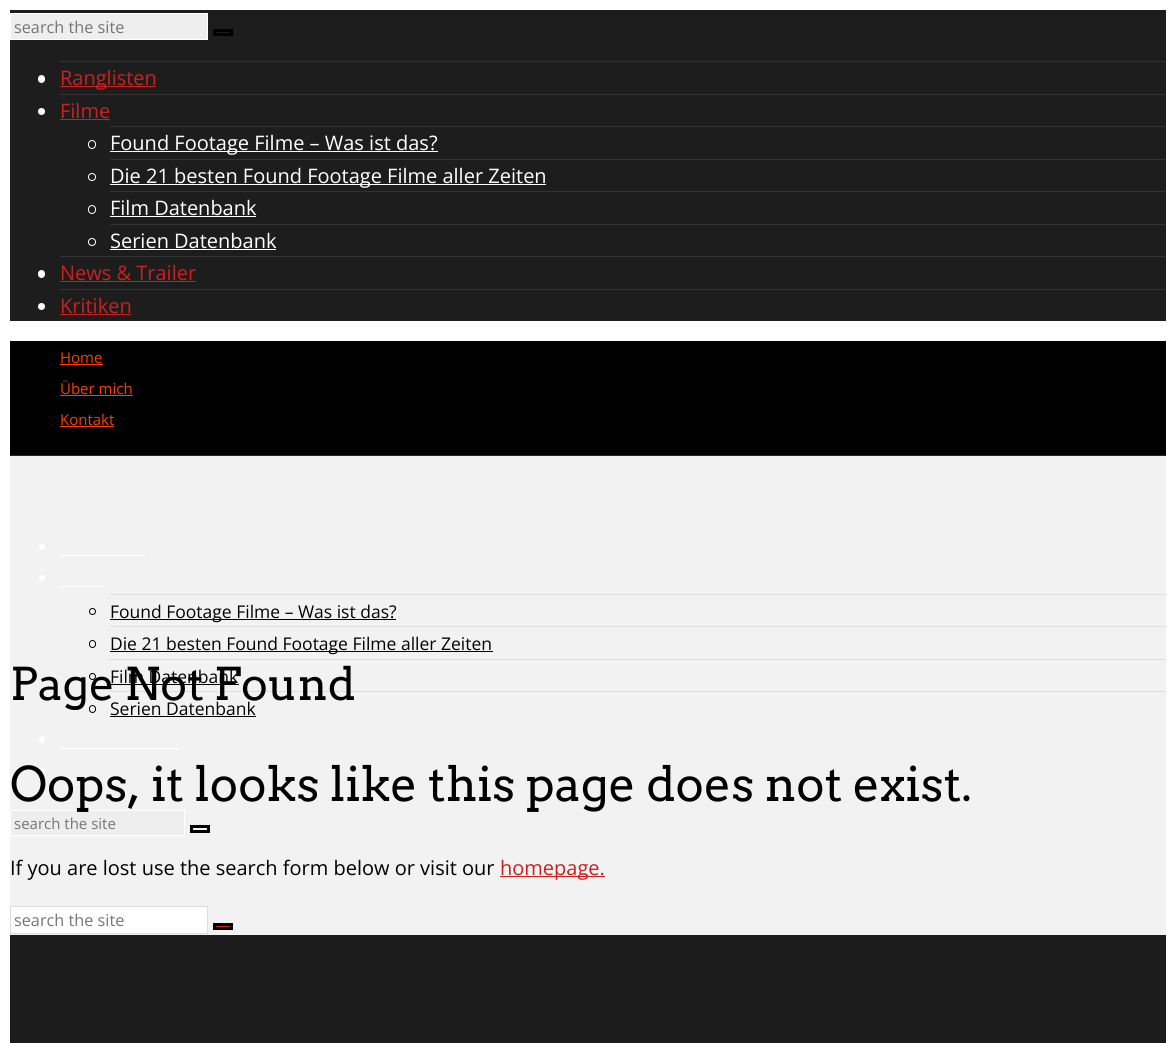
import math
import cairo

surface = cairo.ImageSurface(cairo.FORMAT_RGB24, 1176, 1043)
c = cairo.Context(surface)
options = cairo.FontOptions()
options.set_hint_metrics(cairo.HINT_METRICS_OFF)
options.set_hint_style(cairo.HINT_STYLE_NONE)
c.set_font_options(options)
c.set_miter_limit(4)
def C(code):
 c.set_source_rgb(*(v / 255 for v in bytes.fromhex(code[-6:])))
def F(family, size, italic, bold):
 c.select_font_face(family, cairo.FONT_SLANT_ITALIC if italic else cairo.FONT_SLANT_NORMAL, cairo.FONT_WEIGHT_BOLD if bold else cairo.FONT_WEIGHT_NORMAL)
 c.set_font_size(size)
def T(x, y, s):
 c.move_to(x, y)
 c.show_text(s)
def R(x, y, w, h):
 c.rectangle(x, y, w, h)
 c.fill()
def Q(x, y, w, h, r):
 c.new_sub_path()
 for i, (u, v) in enumerate([(x + w - r, y + h - r), (x + r, y + h - r), (x + r, y + r), (x + w - r, y + r)]):
  c.arc(u, v, r, i * math.pi / 2, (i + 1) * math.pi / 2)
 c.close_path()
C('ffffff')
c.paint()
C('1d1d1d')
R(10,10,1156,311)
C('eeeeee')
c.rectangle(10.5,13.5,197,26)
c.fill_preserve()
C('ffffff')
c.set_line_width(1)
c.stroke()
F('Open Sans',16.25,0,0)
C('757575')
T(14,33,'search the site')
c.rectangle(214.5,30.5,17,4)
C('000000')
c.set_line_width(3)
c.stroke()
C('333333')
R(60,61,1106,1)
C('ffffff')
Q(38,75,7,8,3.5)
c.fill()
C('ca2020')
R(60,86,96,1)
F('Open Sans',20,0,0)
T(60,85,'Ranglisten')
C('333333')
R(60,94,1106,1)
C('ffffff')
c.new_path()
c.arc(41.5,111.5,3.5,0,2 * math.pi)
c.fill()
C('ca2020')
T(60,118,'Filme')
R(60,119,50,1)
C('333333')
R(110,126,1056,1)
Q(88.5,140.5,7,8,3.5)
C('ffffff')
c.set_line_width(1)
c.stroke()
R(110,151,328,1)
T(110,150,'Found Footage Filme – Was ist das?')
C('333333')
R(110,159,1056,1)
c.new_path()
c.arc(92,177,3.5,0,2 * math.pi)
C('ffffff')
c.stroke()
R(110,184,436,1)
T(110,183,'Die 21 besten Found Footage Filme aller Zeiten')
C('333333')
R(110,191,1056,1)
Q(88.5,205.5,7,8,3.5)
C('ffffff')
c.stroke()
T(110,215,'Film Datenbank')
R(110,216,146,1)
C('333333')
R(110,224,1056,1)
c.new_path()
c.arc(92,242,3.5,0,2 * math.pi)
C('ffffff')
c.stroke()
T(110,248,'Serien Datenbank')
R(110,249,166,1)
C('333333')
R(60,256,1106,1)
C('ffffff')
Q(38,270,7,8,3.5)
c.fill()
C('ca2020')
T(60,280,'News & Trailer')
R(60,281,136,1)
C('333333')
R(60,289,1106,1)
C('ffffff')
c.new_path()
c.arc(41.5,306.5,3.5,0,2 * math.pi)
c.fill()
C('ca2020')
T(60,313,'Kritiken')
R(60,314,71,1)
C('f2f2f2')
R(10,456,1156,479)
C('000000')
R(10,341,1156,114)
C('292929')
R(10,455,1156,1)
F('Open Sans',15,0,0)
C('f84103')
T(60,363,'Home')
R(60,364,43,1)
T(60,394,'Über mich')
R(60,395,73,1)
T(60,425,'Kontakt')
R(60,426,54,1)
C('ffffff')
c.new_path()
c.arc(42,547,3,0,2 * math.pi)
c.fill()
R(60,555,85,1)
c.arc(42,578,3,0,2 * math.pi)
c.fill()
R(60,586,44,1)
C('dddddd')
R(110,594,1056,1)
c.arc(92.5,611.5,3,0,2 * math.pi)
C('000000')
c.stroke()
R(110,619,286,1)
F('Open Sans',17.5,0,0)
T(110,618,'Found Footage Filme – Was ist das?')
C('dddddd')
R(110,626,1056,1)
Q(89.5,640.5,6,7,3)
C('000000')
c.stroke()
R(110,651,383,1)
T(110,650,'Die 21 besten Found Footage Filme aller Zeiten')
C('dddddd')
R(110,659,1056,1)
c.new_path()
c.arc(92.5,676.5,3,0,2 * math.pi)
C('000000')
c.stroke()
T(110,683,'Film Datenbank')
R(110,684,129,1)
C('dddddd')
R(110,691,1056,1)
Q(89.5,705.5,6,7,3)
C('000000')
c.stroke()
T(110,715,'Serien Datenbank')
R(110,716,146,1)
C('ffffff')
Q(39,736,6,7,3)
c.fill()
R(60,748,119,1)
c.arc(42,771,3,0,2 * math.pi)
c.fill()
R(60,779,63,1)
C('eeeeee')
c.rectangle(10.5,810.5,174,25)
c.fill_preserve()
C('ffffff')
c.stroke()
F('Open Sans',15,0,0)
C('757575')
T(14,829,'search the site')
c.rectangle(191.5,826.5,17,5)
C('000000')
c.set_line_width(3)
c.stroke()
F('Arvo',45,0,0)
T(10,700,'Page Not Found')
F('Arvo',47.5,0,0)
T(10,801,'Oops, it looks like this page does not exist.')
F('Open Sans',20,0,0)
T(10,875,'If you are lost use the search form below or visit our')
C('ca2020')
R(500,876,105,1)
T(500,875,'homepage.')
C('ffffff')
c.rectangle(10.5,906.5,197,27)
c.fill_preserve()
C('dddddd')
c.set_line_width(1)
c.stroke()
F('Open Sans',16.25,0,0)
C('757575')
T(14,926,'search the site')
C('ca2020')
c.rectangle(214.5,924.5,17,4)
c.fill_preserve()
C('000000')
c.set_line_width(3)
c.stroke()
C('1c1c1c')
R(10,935,1156,108)
surface.write_to_png('o.png')
